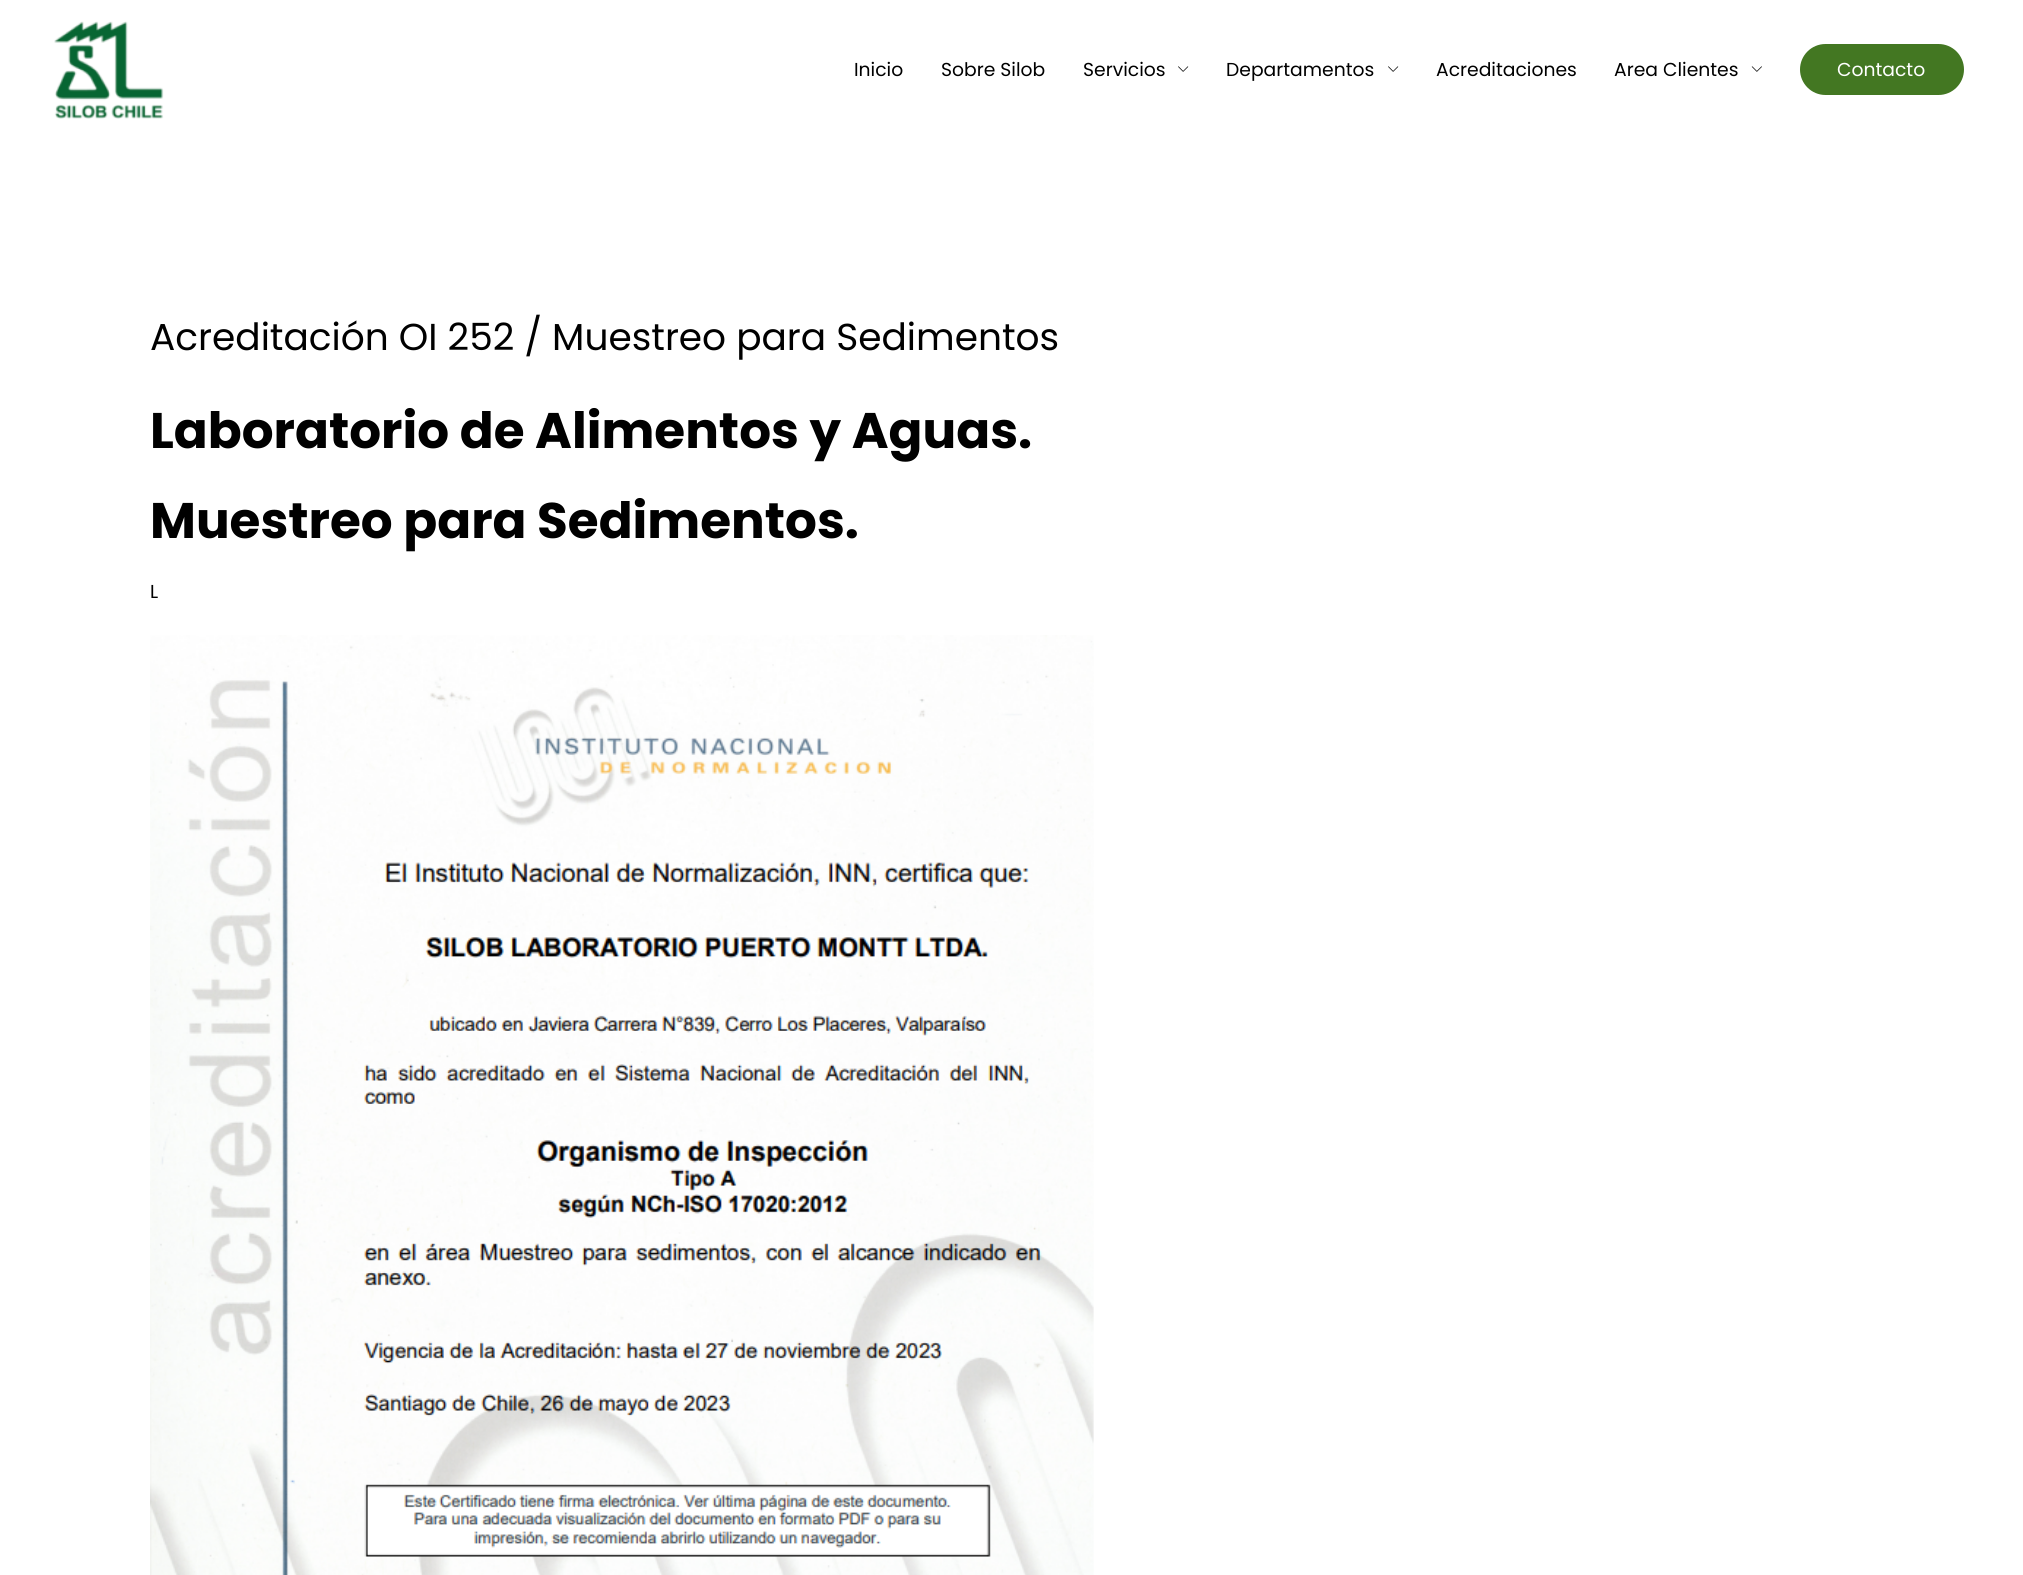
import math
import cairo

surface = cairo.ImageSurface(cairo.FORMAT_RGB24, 2023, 1575)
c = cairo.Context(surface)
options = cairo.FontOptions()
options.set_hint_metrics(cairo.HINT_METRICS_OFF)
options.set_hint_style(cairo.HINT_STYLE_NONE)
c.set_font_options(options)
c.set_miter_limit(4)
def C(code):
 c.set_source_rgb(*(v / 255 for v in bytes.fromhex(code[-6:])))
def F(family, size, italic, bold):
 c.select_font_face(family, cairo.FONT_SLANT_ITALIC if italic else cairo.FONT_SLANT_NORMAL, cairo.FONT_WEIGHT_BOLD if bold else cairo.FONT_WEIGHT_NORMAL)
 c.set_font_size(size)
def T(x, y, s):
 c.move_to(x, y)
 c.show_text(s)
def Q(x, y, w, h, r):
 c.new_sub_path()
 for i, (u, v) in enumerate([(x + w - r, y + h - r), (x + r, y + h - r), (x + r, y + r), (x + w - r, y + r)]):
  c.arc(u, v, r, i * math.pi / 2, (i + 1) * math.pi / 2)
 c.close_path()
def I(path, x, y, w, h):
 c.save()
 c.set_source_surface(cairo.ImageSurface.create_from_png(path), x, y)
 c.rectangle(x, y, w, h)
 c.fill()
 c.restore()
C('ffffff')
c.paint()
I('1.png',54,21,110,98)
F('Poppins',18.75,0,0)
C('000000')
T(854,76,'Inicio')
T(941,76,'Sobre Silob')
T(1083,76,'Servicios')
I('2.png',1178,66,11,6)
T(1226,76,'Departamentos')
I('2.png',1388,66,11,6)
T(1436,76,'Acreditaciones')
T(1614,76,'Area Clientes')
I('3.png',1751,66,11,6)
C('437722')
Q(1800,44,164,51,25.5)
c.fill()
C('ffffff')
T(1837,76,'Contacto')
F('Poppins',37.5,0,0)
C('000000')
T(150,350,'Acreditación OI 252 / Muestreo para Sedimentos')
F('Poppins',50,0,1)
T(150,448,'Laboratorio de Alimentos y Aguas.')
T(150,538,'Muestreo para Sedimentos.')
F('Poppins',18.75,0,0)
T(150,598,'L')
I('4.png',150,635,944,940)
surface.write_to_png('o.png')
